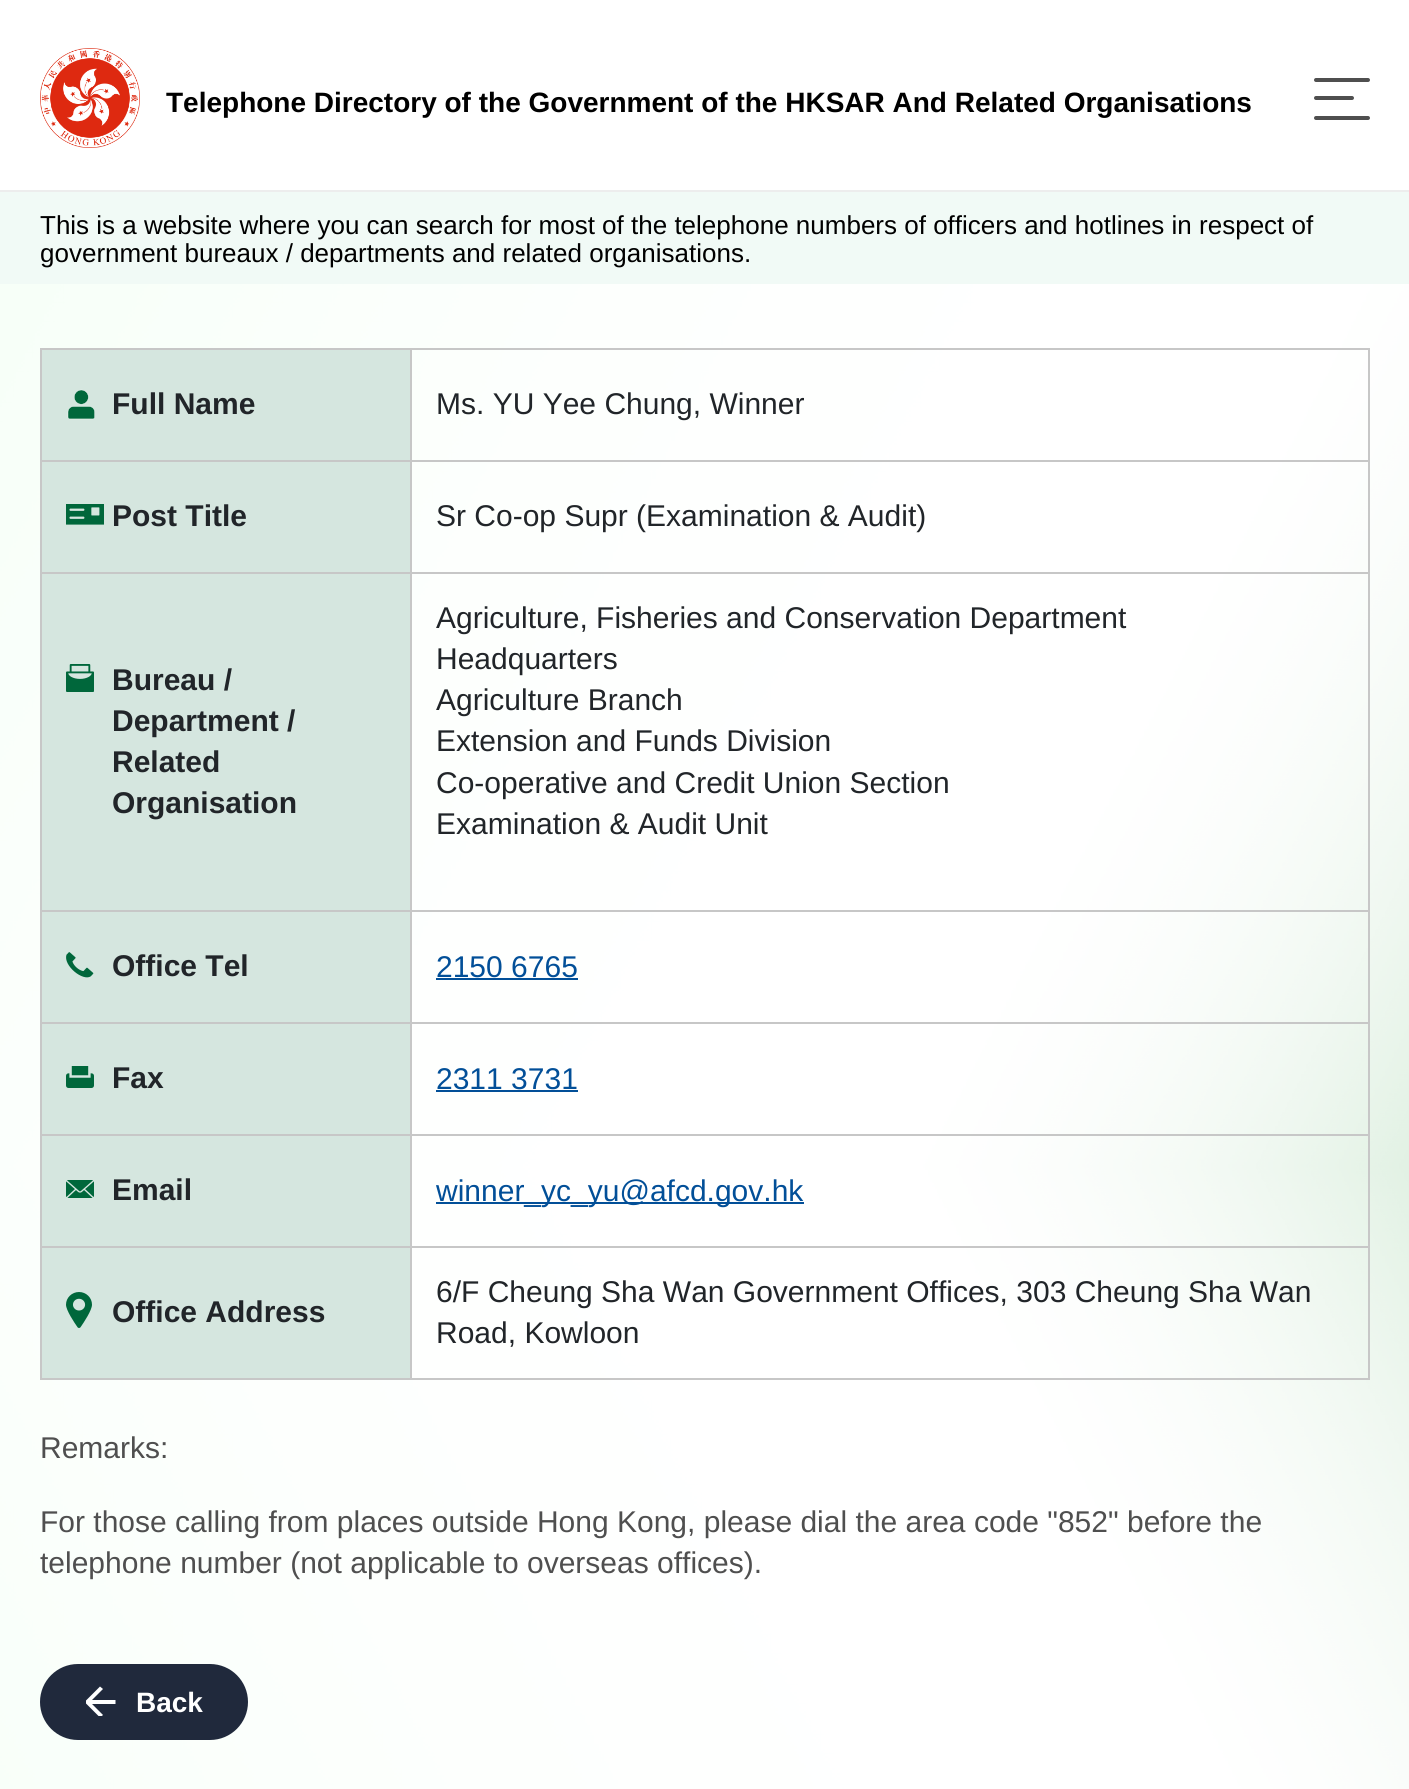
import math
import cairo

surface = cairo.ImageSurface(cairo.FORMAT_RGB24, 1409, 1789)
c = cairo.Context(surface)
options = cairo.FontOptions()
options.set_hint_metrics(cairo.HINT_METRICS_OFF)
options.set_hint_style(cairo.HINT_STYLE_NONE)
c.set_font_options(options)
c.set_miter_limit(4)
def C(code):
 c.set_source_rgb(*(v / 255 for v in bytes.fromhex(code[-6:])))
def F(family, size, italic, bold):
 c.select_font_face(family, cairo.FONT_SLANT_ITALIC if italic else cairo.FONT_SLANT_NORMAL, cairo.FONT_WEIGHT_BOLD if bold else cairo.FONT_WEIGHT_NORMAL)
 c.set_font_size(size)
def T(x, y, s):
 c.move_to(x, y)
 c.show_text(s)
def R(x, y, w, h):
 c.rectangle(x, y, w, h)
 c.fill()
def Q(x, y, w, h, r):
 c.new_sub_path()
 for i, (u, v) in enumerate([(x + w - r, y + h - r), (x + r, y + h - r), (x + r, y + r), (x + w - r, y + r)]):
  c.arc(u, v, r, i * math.pi / 2, (i + 1) * math.pi / 2)
 c.close_path()
def I(path, x, y, w, h):
 c.save()
 c.set_source_surface(cairo.ImageSurface.create_from_png(path), x, y)
 c.rectangle(x, y, w, h)
 c.fill()
 c.restore()
C('ffffff')
c.paint()
C('ededed')
R(0,190,1409,2)
I('1.png',40,48,100,100)
F('Liberation Sans',28,0,1)
C('000000')
T(166,112,'Telephone Directory of the Government of the HKSAR And Related Organisations')
C('4f4f4f')
Q(1314,78,56,4,2)
c.fill()
Q(1314,96,40,4,2)
c.fill()
Q(1314,116,56,4,2)
c.fill()
C('f1faf6')
R(0,192,1409,92)
F('Liberation Sans',26,0,0)
C('000000')
T(40,234,'This is a website where you can search for most of the telephone numbers of officers and hotlines in respect of')
T(40,262,'government bureaux / departments and related organisations.')
I('2.png',0,284,1409,1505)
C('d5e6df')
R(42,350,368,110)
C('c7c7c7')
R(410,348,960,2)
R(410,460,960,2)
R(410,572,960,2)
R(410,910,960,2)
R(410,1022,960,2)
R(410,1134,960,2)
R(410,1246,960,2)
R(1368,1246,2,134)
R(410,1378,960,2)
R(410,1246,2,134)
R(40,1246,372,2)
R(410,1134,2,114)
R(40,1134,372,2)
R(410,1022,2,114)
R(40,1022,372,2)
R(410,910,2,114)
R(40,910,372,2)
R(410,572,2,340)
R(40,572,372,2)
R(410,460,2,114)
R(40,460,372,2)
R(410,348,2,114)
R(40,348,372,2)
R(40,1378,372,2)
R(40,1246,2,134)
R(40,1134,2,114)
R(40,1022,2,114)
R(40,910,2,114)
R(40,572,2,340)
R(40,460,2,114)
R(40,348,2,114)
I('3.png',67,389,28,31)
F('Liberation Sans',30,0,1)
C('212529')
T(112,414,'Full Name')
C('c7c7c7')
R(1368,1134,2,114)
R(1368,1022,2,114)
R(1368,910,2,114)
R(1368,572,2,340)
R(1368,460,2,114)
R(1368,348,2,114)
F('Liberation Sans',30,0,0)
C('212529')
T(436,414,'Ms. YU Yee Chung, Winner')
C('d5e6df')
R(42,462,368,110)
I('4.png',66,504,38,21)
F('Liberation Sans',30,0,1)
C('212529')
T(112,526,'Post Title')
F('Liberation Sans',30,0,0)
T(436,526,'Sr Co-op Supr (Examination & Audit)')
C('d5e6df')
R(42,574,368,336)
I('5.png',66,664,28,28)
F('Liberation Sans',30,0,1)
C('212529')
T(112,690,'Bureau /')
T(112,731,'Department /')
T(112,772,'Related')
T(112,813,'Organisation')
F('Liberation Sans',30,0,0)
T(436,628,'Agriculture, Fisheries and Conservation Department')
T(436,669,'Headquarters')
T(436,710,'Agriculture Branch')
T(436,751,'Extension and Funds Division')
T(436,793,'Co-operative and Credit Union Section')
T(436,834,'Examination & Audit Unit')
C('d5e6df')
R(42,912,368,110)
I('6.png',66,952,28,26)
F('Liberation Sans',30,0,1)
C('212529')
T(112,976,'Office Tel')
F('Liberation Sans',30,0,0)
C('024f98')
T(436,977,'2150 6765')
R(436,978,142,2)
C('d5e6df')
R(42,1024,368,110)
I('7.png',66,1066,28,22)
F('Liberation Sans',30,0,1)
C('212529')
T(112,1088,'Fax')
F('Liberation Sans',30,0,0)
C('024f98')
T(436,1089,'2311 3731')
R(436,1090,142,2)
C('d5e6df')
R(42,1136,368,110)
I('8.png',66,1180,28,18)
F('Liberation Sans',30,0,1)
C('212529')
T(112,1200,'Email')
C('024f98')
R(436,1202,368,2)
F('Liberation Sans',30,0,0)
T(436,1201,'winner_yc_yu@afcd.gov.hk')
C('d5e6df')
R(42,1248,368,130)
I('9.png',66,1292,26,36)
F('Liberation Sans',30,0,1)
C('212529')
T(112,1322,'Office Address')
F('Liberation Sans',30,0,0)
T(436,1302,'6/F Cheung Sha Wan Government Offices, 303 Cheung Sha Wan')
T(436,1343,'Road, Kowloon')
C('4f4f4f')
T(40,1458,'Remarks:')
T(40,1532,'For those calling from places outside Hong Kong, please dial the area code "852" before the')
T(40,1573,'telephone number (not applicable to overseas offices).')
C('20293c')
Q(41,1665,206,74,37)
c.fill_preserve()
c.stroke()
c.save()
c.rectangle(86,1686,30,30)
c.clip()
C('ffffff')
c.new_path()
c.move_to(115.5,1700)
c.line_to(92,1700)
c.line_to(103,1689)
c.line_to(100,1686.5)
c.line_to(84.5,1702)
c.line_to(100,1717.5)
c.line_to(103,1715)
c.line_to(92,1704)
c.line_to(115.5,1704)
c.close_path()
c.fill()
c.restore()
F('Liberation Sans',28,0,1)
C('ffffff')
T(136,1712,'Back')
surface.write_to_png('o.png')
